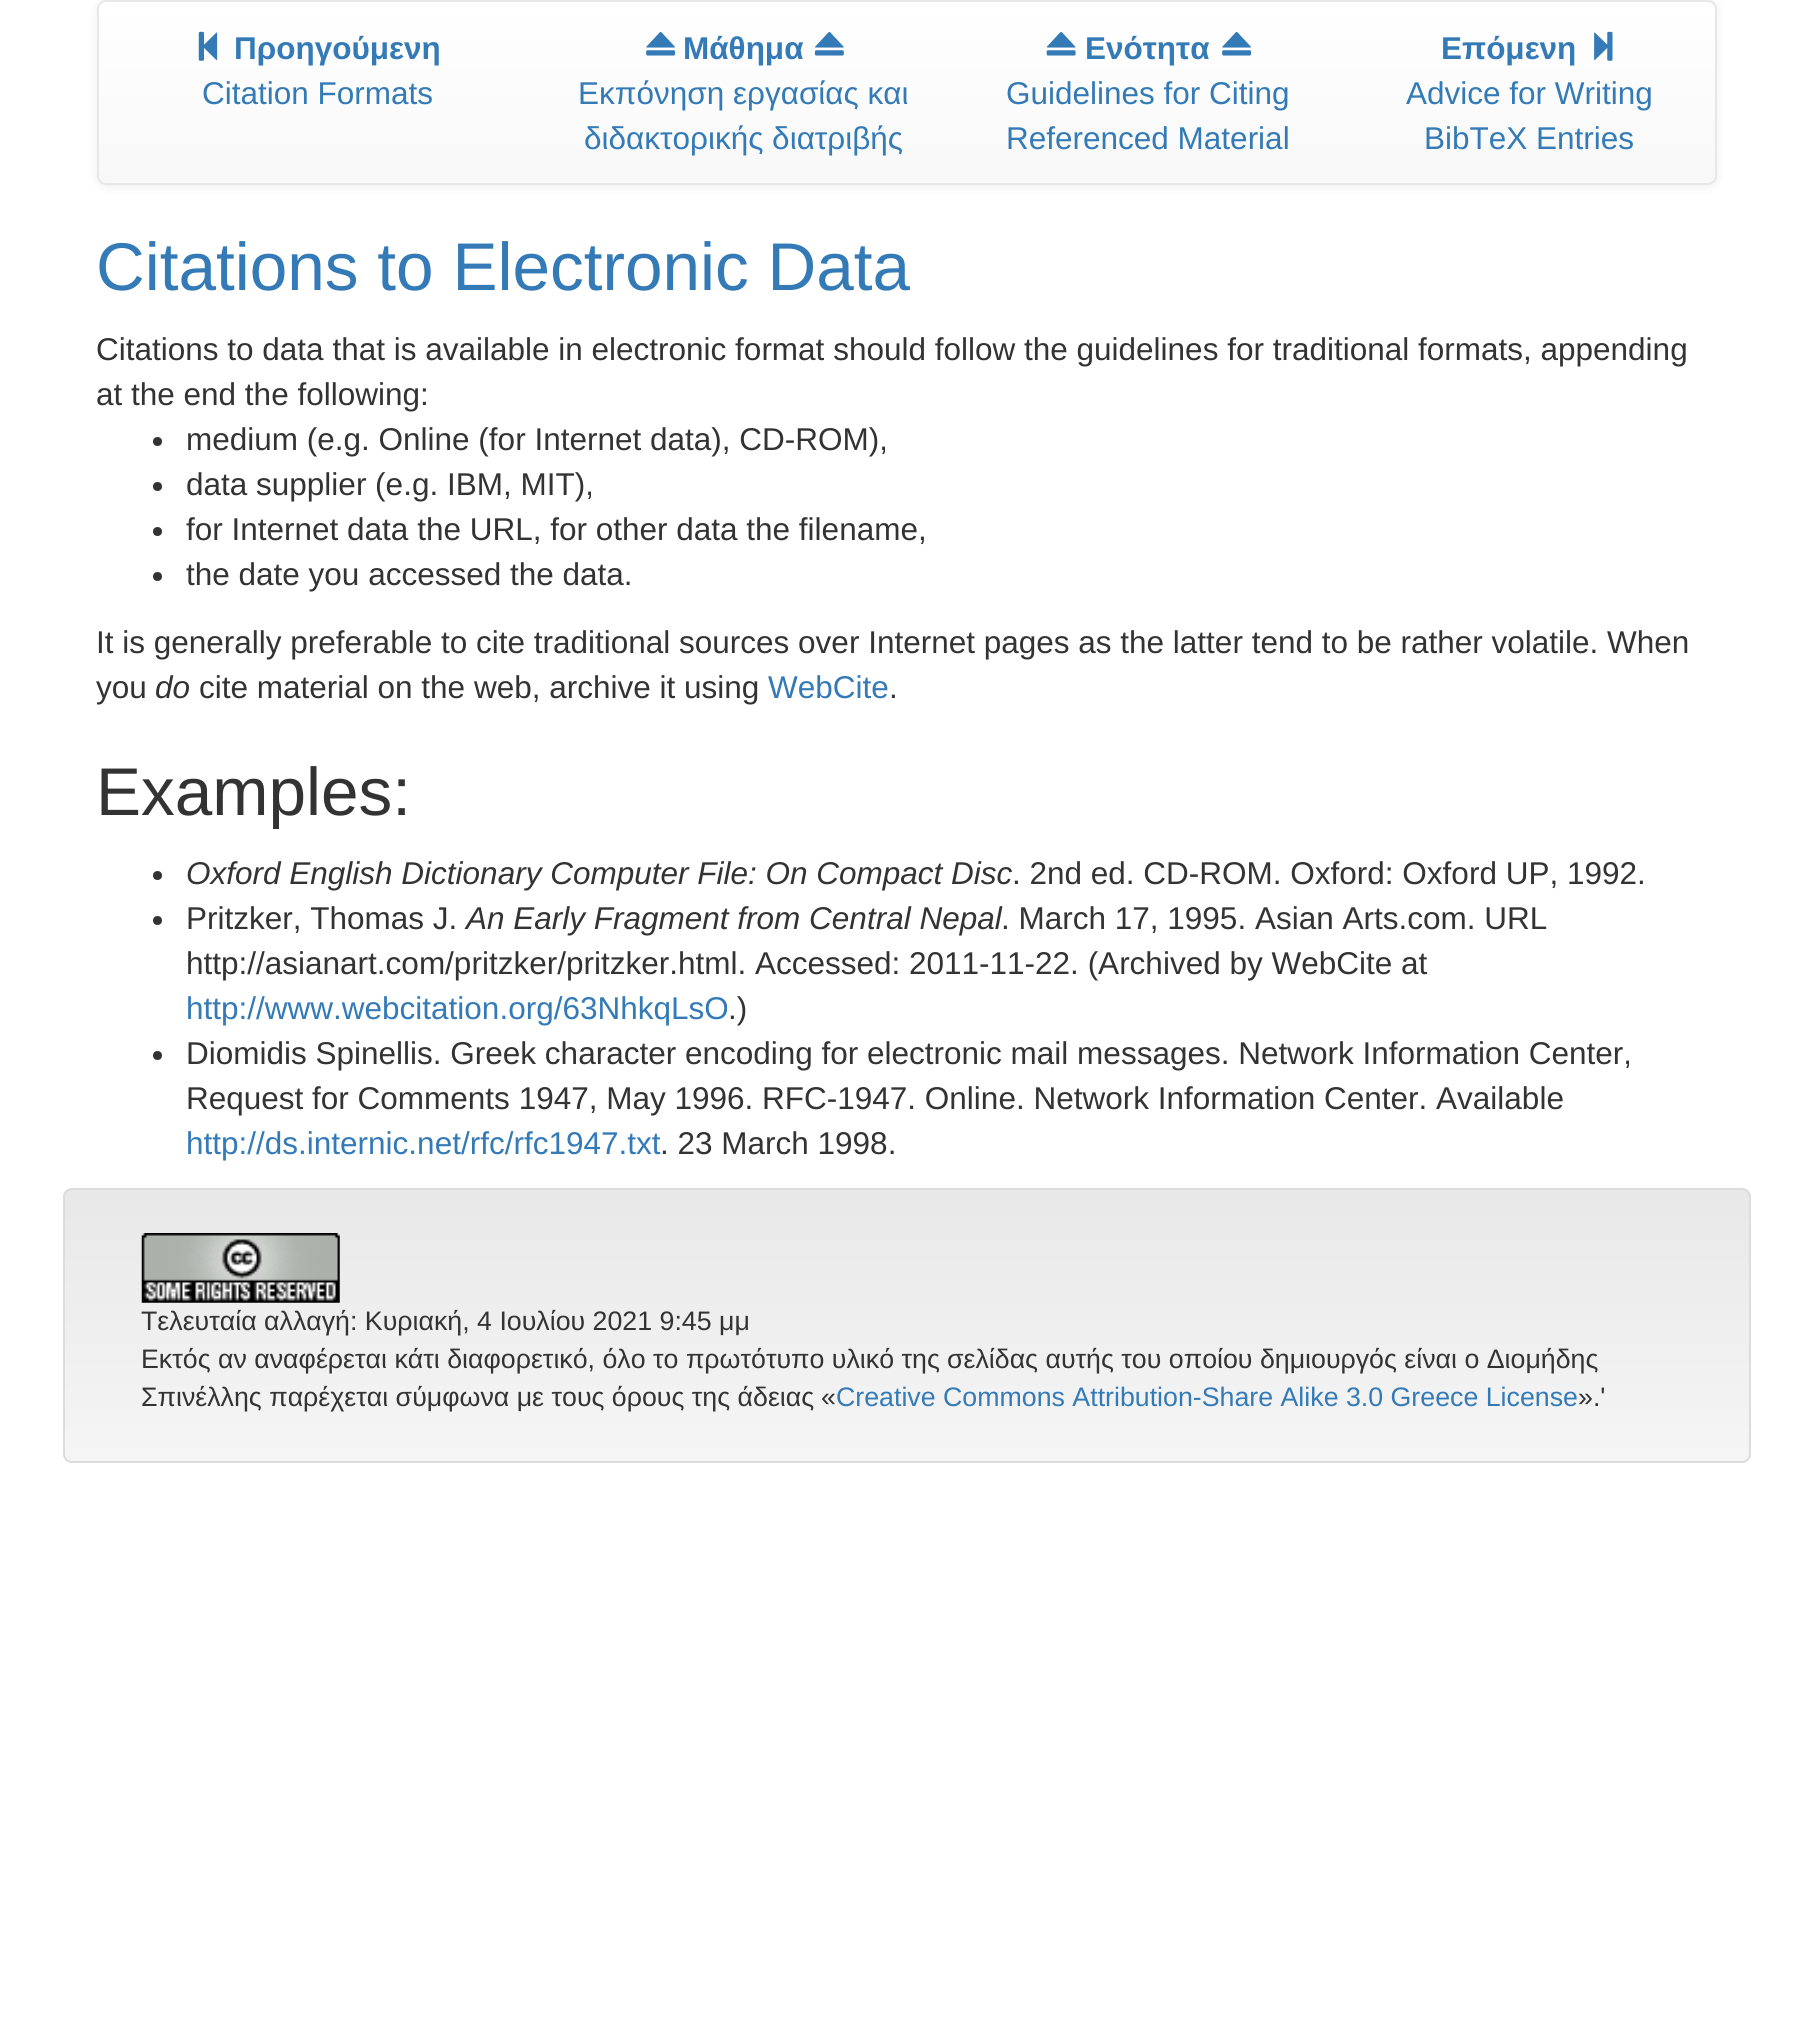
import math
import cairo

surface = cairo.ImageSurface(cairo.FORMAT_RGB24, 1811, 2022)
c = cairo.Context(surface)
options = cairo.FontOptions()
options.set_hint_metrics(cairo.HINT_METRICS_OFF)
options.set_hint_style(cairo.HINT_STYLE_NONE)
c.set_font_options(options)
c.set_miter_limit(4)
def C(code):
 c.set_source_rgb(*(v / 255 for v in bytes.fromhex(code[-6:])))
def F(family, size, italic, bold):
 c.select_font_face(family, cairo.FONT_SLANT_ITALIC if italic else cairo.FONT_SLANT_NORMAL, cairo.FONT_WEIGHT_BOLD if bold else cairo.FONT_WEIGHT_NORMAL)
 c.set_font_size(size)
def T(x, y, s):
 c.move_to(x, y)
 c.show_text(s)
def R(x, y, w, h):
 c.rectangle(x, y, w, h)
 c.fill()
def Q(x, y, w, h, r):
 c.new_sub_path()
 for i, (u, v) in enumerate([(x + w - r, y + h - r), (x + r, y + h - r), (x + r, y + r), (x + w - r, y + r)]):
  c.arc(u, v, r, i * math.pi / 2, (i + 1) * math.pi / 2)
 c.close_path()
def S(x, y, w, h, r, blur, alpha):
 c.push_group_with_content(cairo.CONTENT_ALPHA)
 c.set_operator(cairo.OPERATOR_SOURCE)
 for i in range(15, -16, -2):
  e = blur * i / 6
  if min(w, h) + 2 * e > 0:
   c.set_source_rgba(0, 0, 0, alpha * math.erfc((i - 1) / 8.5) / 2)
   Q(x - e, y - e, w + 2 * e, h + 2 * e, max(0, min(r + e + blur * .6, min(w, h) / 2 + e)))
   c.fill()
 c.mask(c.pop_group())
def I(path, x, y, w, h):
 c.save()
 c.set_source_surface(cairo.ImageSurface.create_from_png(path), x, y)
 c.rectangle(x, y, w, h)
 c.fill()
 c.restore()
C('ffffff')
c.paint()
C('000000')
S(97,2,1620,185,9,5.5,.07)
C('f8f8f8')
Q(97,0,1620,185,9)
c.fill()
c.save()
Q(97,0,1620,185,9)
c.clip()
gradient = cairo.LinearGradient(907,2.2,907,182)
gradient.add_color_stop_rgba(0,1,1,1,1)
gradient.add_color_stop_rgba(1,0.973,0.973,0.973,1)
c.set_source(gradient)
R(97,2,1620,180)
c.restore()
Q(98,1,1618,183,8)
C('e7e7e7')
c.stroke()
I('1.png',198,31,20,30)
F('Liberation Sans',31.5,0,1)
C('337ab7')
T(234,59,'Προηγούμενη')
F('Liberation Sans',31.5,0,0)
T(202,104,'Citation Formats')
I('2.png',646,32,30,24)
F('Liberation Sans',31.5,0,1)
T(683,59,'Μάθημα')
I('3.png',814,32,30,24)
F('Liberation Sans',31.5,0,0)
T(578,104,'Εκπόνηση εργασίας και')
T(584,149,'διδακτορικής διατριβής')
I('4.png',1046,32,30,24)
F('Liberation Sans',31.5,0,1)
T(1085,59,'Ενότητα')
I('2.png',1222,32,30,24)
F('Liberation Sans',31.5,0,0)
T(1006,104,'Guidelines for Citing')
T(1006,149,'Referenced Material')
F('Liberation Sans',31.5,0,1)
T(1441,59,'Επόμενη')
I('5.png',1594,31,19,30)
F('Liberation Sans',31.5,0,0)
T(1406,104,'Advice for Writing')
T(1424,149,'BibTeX Entries')
F('Liberation Sans',67.5,0,0)
T(96,290,'Citations to Electronic Data')
F('Liberation Sans',31.5,0,0)
C('333333')
T(96,360,'Citations to data that is available in electronic format should follow the guidelines for traditional formats, appending')
T(96,405,'at the end the following:')
c.new_path()
c.arc(157.5,441.5,4.5,0,2 * math.pi)
c.fill()
T(186,450,'medium (e.g. Online (for Internet data), CD-ROM),')
c.new_path()
c.arc(157.5,486.5,4.5,0,2 * math.pi)
c.fill()
T(186,495,'data supplier (e.g. IBM, MIT),')
c.new_path()
c.arc(157.5,531.5,4.5,0,2 * math.pi)
c.fill()
T(186,540,'for Internet data the URL, for other data the filename,')
c.new_path()
c.arc(157.5,576.5,4.5,0,2 * math.pi)
c.fill()
T(186,585,'the date you accessed the data.')
T(96,653,'It is generally preferable to cite traditional sources over Internet pages as the latter tend to be rather volatile. When')
T(96,698,'you')
F('Liberation Sans',31.5,1,0)
T(155,698,'do')
F('Liberation Sans',31.5,0,0)
T(199,698,'cite material on the web, archive it using')
C('337ab7')
T(768,698,'WebCite')
C('333333')
T(889,698,'.')
F('Liberation Sans',67.5,0,0)
T(96,815,'Examples:')
c.new_path()
c.arc(157.5,875.5,4.5,0,2 * math.pi)
c.fill()
F('Liberation Sans',31.5,1,0)
T(186,884,'Oxford English Dictionary Computer File: On Compact Disc')
F('Liberation Sans',31.5,0,0)
T(1012,884,'. 2nd ed. CD-ROM. Oxford: Oxford UP, 1992.')
c.new_path()
c.arc(157.5,920.5,4.5,0,2 * math.pi)
c.fill()
T(186,929,'Pritzker, Thomas J.')
F('Liberation Sans',31.5,1,0)
T(466,929,'An Early Fragment from Central Nepal')
F('Liberation Sans',31.5,0,0)
T(1001,929,'. March 17, 1995. Asian Arts.com. URL')
T(186,974,'http://asianart.com/pritzker/pritzker.html. Accessed: 2011-11-22. (Archived by WebCite at')
C('337ab7')
T(186,1019,'http://www.webcitation.org/63NhkqLsO')
C('333333')
T(728,1019,'.)')
c.new_path()
c.arc(157.5,1055.5,4.5,0,2 * math.pi)
c.fill()
T(186,1064,'Diomidis Spinellis. Greek character encoding for electronic mail messages. Network Information Center,')
T(186,1109,'Request for Comments 1947, May 1996. RFC-1947. Online. Network Information Center. Available')
C('337ab7')
T(186,1154,'http://ds.internic.net/rfc/rfc1947.txt')
C('333333')
T(660,1154,'. 23 March 1998.')
C('f5f5f5')
Q(63,1188,1688,275,9)
c.fill()
c.save()
Q(63,1188,1688,275,9)
c.clip()
gradient = cairo.LinearGradient(907,1190,907,1460)
gradient.add_color_stop_rgba(0,0.91,0.91,0.91,1)
gradient.add_color_stop_rgba(1,0.961,0.961,0.961,1)
c.set_source(gradient)
R(63,1190,1688,270)
c.restore()
Q(64,1189,1686,273,8)
C('dcdcdc')
c.stroke()
I('6.png',141,1233,199,70)
F('Liberation Sans',26.75,0,0)
C('333333')
T(141,1330,'Τελευταία αλλαγή: Κυριακή, 4 Ιουλίου 2021 9:45 μμ')
T(141,1368,'Εκτός αν αναφέρεται κάτι διαφορετικό, όλο το πρωτότυπο υλικό της')
T(947,1368,'σελίδας αυτής του οποίου δημιουργός είναι ο Διομήδης')
T(141,1406,'Σπινέλλης παρέχεται σύμφωνα με τους όρους της άδειας')
T(821,1406,'«')
C('337ab7')
T(836,1406,'Creative Commons Attribution-Share Alike 3.0 Greece License')
C('333333')
T(1578,1406,'».\'')
surface.write_to_png('o.png')
